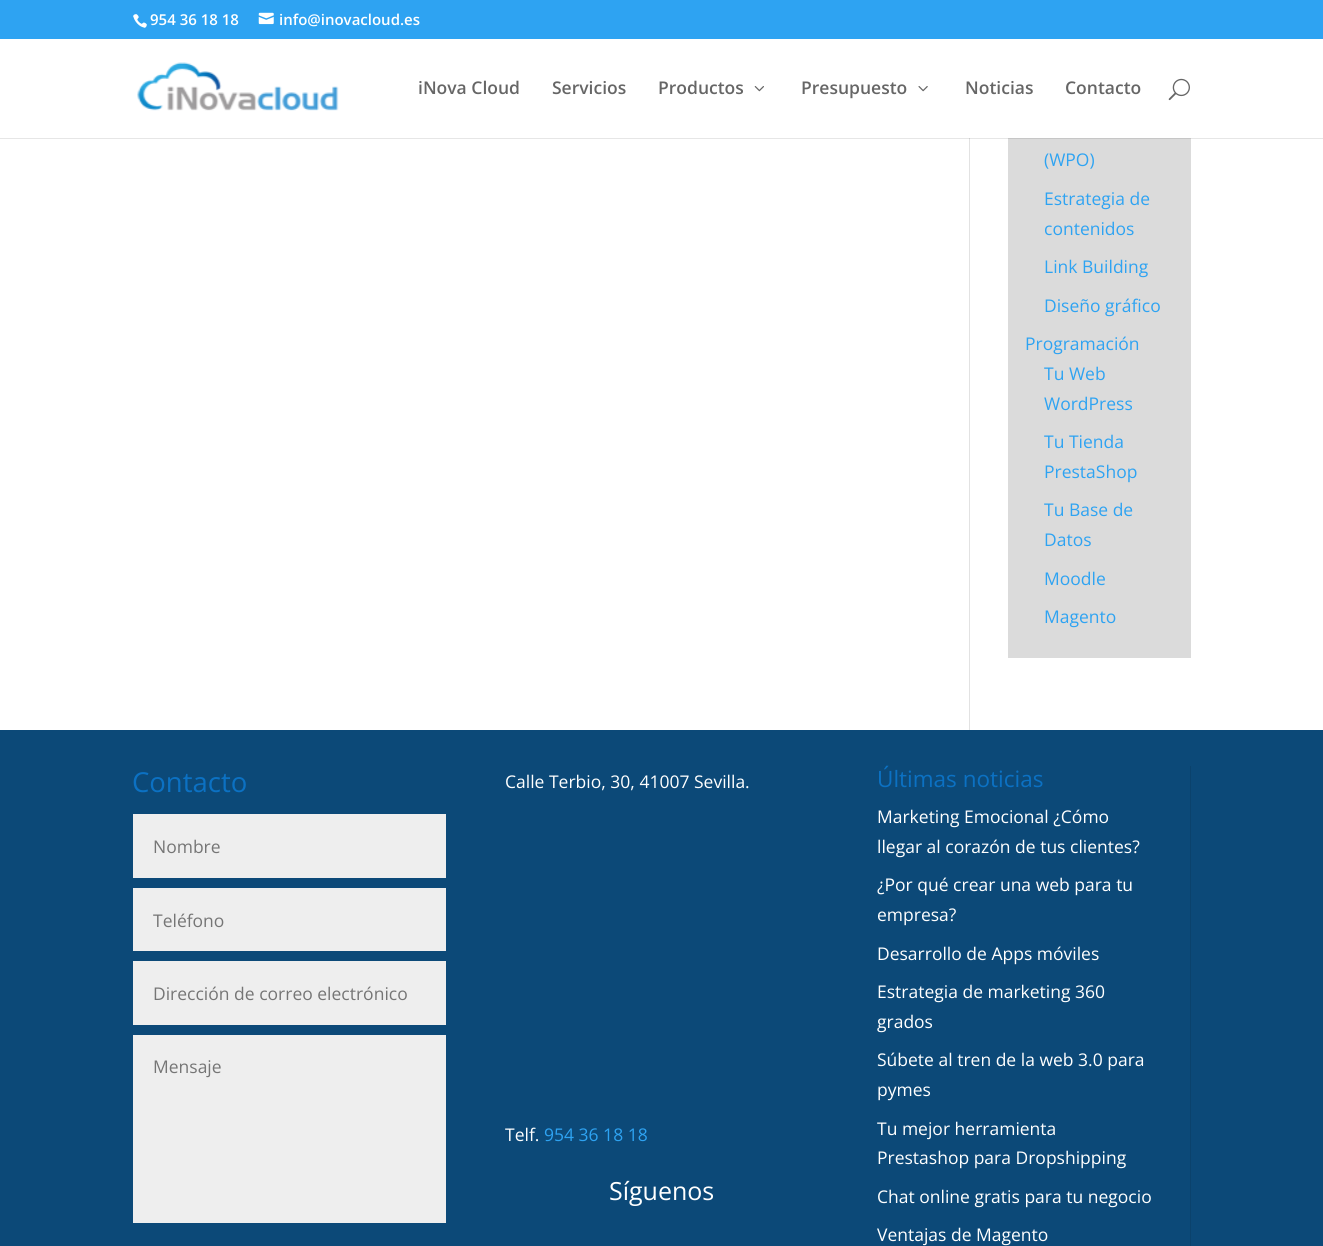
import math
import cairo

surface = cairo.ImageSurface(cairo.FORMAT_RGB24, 1323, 1246)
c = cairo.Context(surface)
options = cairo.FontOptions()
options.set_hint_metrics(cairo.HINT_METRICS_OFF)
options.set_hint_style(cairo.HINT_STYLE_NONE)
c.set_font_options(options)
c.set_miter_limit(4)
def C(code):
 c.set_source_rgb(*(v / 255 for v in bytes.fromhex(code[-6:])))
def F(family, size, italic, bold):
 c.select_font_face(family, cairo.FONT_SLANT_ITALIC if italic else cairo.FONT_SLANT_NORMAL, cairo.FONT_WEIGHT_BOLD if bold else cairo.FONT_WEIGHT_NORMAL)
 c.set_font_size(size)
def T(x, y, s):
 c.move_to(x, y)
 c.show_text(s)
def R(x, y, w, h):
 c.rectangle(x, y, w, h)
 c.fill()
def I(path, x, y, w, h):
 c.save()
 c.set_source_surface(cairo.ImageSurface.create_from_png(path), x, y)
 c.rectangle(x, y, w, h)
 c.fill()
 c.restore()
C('ffffff')
c.paint()
C('2ea3f2')
R(0,0,1323,39)
I('1.png',133,14,14,14)
F('Open Sans SemiBold',15,0,0)
C('ffffff')
T(150,25,'954 36 18 18')
I('2.png',258,12,16,13)
T(279,25,'info@inovacloud.es')
C('e2e2e2')
R(969,138,1,592)
C('dbdbdb')
R(1008,138,183,520)
c.set_source_rgba(0,0,0,0.1)
c.new_path()
c.move_to(0,138)
c.line_to(0,139)
c.line_to(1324,139)
c.line_to(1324,39)
c.line_to(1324,138)
c.close_path()
c.fill()
I('3.png',137,62,202,49)
F('Open Sans SemiBold',17.5,0,0)
C('666666')
T(418,94,'iNova Cloud')
T(552,94,'Servicios')
T(658,94,'Productos')
I('4.png',754,86,10,6)
T(801,94,'Presupuesto')
I('5.png',918,86,10,6)
T(965,94,'Noticias')
T(1065,94,'Contacto')
I('6.png',1168,78,22,23)
F('Open Sans',17.5,0,0)
C('2ea3f2')
T(1044,166,'(WPO)')
T(1044,205,'Estrategia de')
T(1044,235,'contenidos')
T(1044,273,'Link Building')
T(1044,312,'Diseño gráfico')
T(1025,350,'Programación')
T(1044,380,'Tu Web')
T(1044,410,'WordPress')
T(1044,448,'Tu Tienda')
T(1044,478,'PrestaShop')
T(1044,516,'Tu Base de')
T(1044,546,'Datos')
T(1044,585,'Moodle')
T(1044,623,'Magento')
C('0c4978')
R(0,730,1323,516)
F('Open Sans',27.5,0,0)
C('0c71c3')
T(132,792,'Contacto')
C('eeeeee')
R(133,814,313,64)
F('Open Sans',17.5,0,0)
C('757575')
T(153,853,'Nombre')
C('eeeeee')
R(133,888,313,63)
C('757575')
T(153,927,'Teléfono')
C('eeeeee')
R(133,961,313,64)
C('757575')
T(153,1000,'Dirección de correo electrónico')
C('eeeeee')
R(133,1035,313,188)
C('757575')
T(153,1073,'Mensaje')
C('ffffff')
T(505,788,'Calle Terbio, 30, 41007 Sevilla.')
T(505,1141,'Telf.')
C('2ea3f2')
T(544,1141,'954 36 18 18')
F('Open Sans',25,0,0)
C('ffffff')
T(609,1200,'Síguenos')
C('0b426c')
R(1190,766,1,480)
F('Open Sans',22.5,0,0)
C('0c71c3')
T(877,787,'Últimas noticias')
F('Open Sans',17.5,0,0)
C('ffffff')
T(877,823,'Marketing Emocional ¿Cómo')
T(877,853,'llegar al corazón de tus clientes?')
T(877,891,'¿Por qué crear una web para tu')
T(877,921,'empresa?')
T(877,960,'Desarrollo de Apps móviles')
T(877,998,'Estrategia de marketing 360')
T(877,1028,'grados')
T(877,1066,'Súbete al tren de la web 3.0 para')
T(877,1096,'pymes')
T(877,1135,'Tu mejor herramienta')
T(877,1164,'Prestashop para Dropshipping')
T(877,1203,'Chat online gratis para tu negocio')
T(877,1241,'Ventajas de Magento')
surface.write_to_png('o.png')
